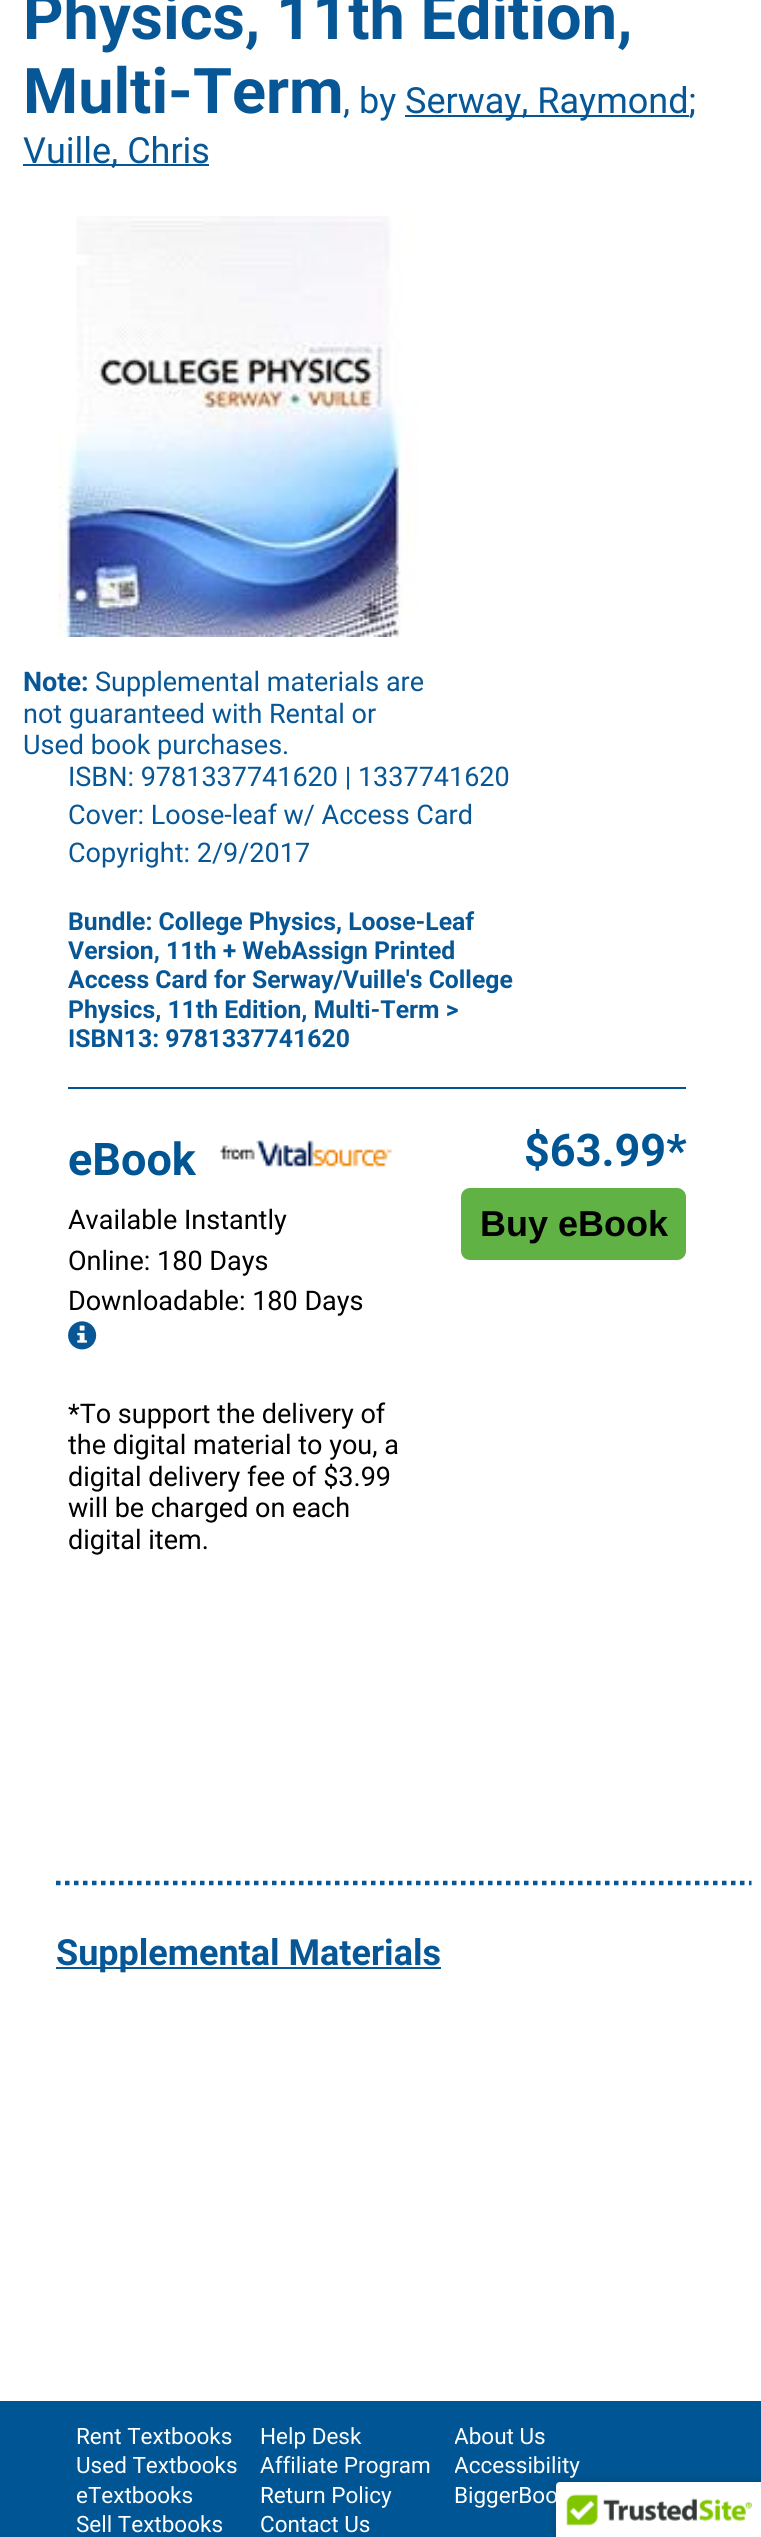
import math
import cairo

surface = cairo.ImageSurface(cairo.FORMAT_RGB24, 761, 2537)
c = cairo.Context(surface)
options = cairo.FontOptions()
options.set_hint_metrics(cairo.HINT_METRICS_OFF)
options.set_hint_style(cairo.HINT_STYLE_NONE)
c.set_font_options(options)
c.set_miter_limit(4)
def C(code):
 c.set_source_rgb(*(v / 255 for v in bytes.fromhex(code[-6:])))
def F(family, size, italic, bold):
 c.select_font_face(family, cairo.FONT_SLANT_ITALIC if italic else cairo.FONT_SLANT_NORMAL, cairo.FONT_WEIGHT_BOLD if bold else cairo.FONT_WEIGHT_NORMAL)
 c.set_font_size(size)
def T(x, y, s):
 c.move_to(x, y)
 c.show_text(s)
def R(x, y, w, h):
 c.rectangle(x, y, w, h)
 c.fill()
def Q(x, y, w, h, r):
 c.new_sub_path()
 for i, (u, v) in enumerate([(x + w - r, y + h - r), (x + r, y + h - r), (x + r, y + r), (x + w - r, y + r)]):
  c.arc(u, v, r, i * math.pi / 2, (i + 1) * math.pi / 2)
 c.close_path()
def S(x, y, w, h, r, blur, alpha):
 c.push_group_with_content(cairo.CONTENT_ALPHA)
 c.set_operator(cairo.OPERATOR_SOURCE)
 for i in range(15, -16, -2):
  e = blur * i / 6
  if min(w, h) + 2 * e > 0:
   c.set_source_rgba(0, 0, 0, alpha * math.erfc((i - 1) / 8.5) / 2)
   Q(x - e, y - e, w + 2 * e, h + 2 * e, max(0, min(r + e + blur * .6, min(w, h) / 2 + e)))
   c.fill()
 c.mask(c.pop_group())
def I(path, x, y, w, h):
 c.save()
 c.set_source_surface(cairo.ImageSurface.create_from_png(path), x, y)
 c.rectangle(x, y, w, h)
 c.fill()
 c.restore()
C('ffffff')
c.paint()
F('Roboto',63,0,1)
C('075796')
T(23,39,'Physics, 11th Edition,')
T(23,113,'Multi-Term')
F('Roboto',36,0,0)
T(343,113,', by')
R(405,115,284,2)
T(405,113,'Serway, Raymond;')
R(23,164,186,2)
T(23,163,'Vuille, Chris')
I('1.png',58,216,360,421)
F('Roboto',27,0,1)
T(23,691,'Note:')
F('Roboto',27,0,0)
T(95,691,'Supplemental materials are')
T(23,723,'not guaranteed with Rental or')
T(23,754,'Used book purchases.')
T(68,786,'ISBN: 9781337741620 | 1337741620')
T(68,824,'Cover: Loose-leaf w/ Access Card')
T(68,862,'Copyright: 2/9/2017')
F('Roboto',24.75,0,1)
T(68,930,'Bundle: College Physics, Loose-Leaf')
T(68,959,'Version, 11th + WebAssign Printed')
T(68,988,'Access Card for Serway/Vuille\'s College')
T(68,1018,'Physics, 11th Edition, Multi-Term >')
T(68,1047,'ISBN13: 9781337741620')
C('005694')
R(68,1087,618,2)
F('Roboto',45,0,1)
T(68,1175,'eBook')
I('2.png',220,1140,173,27)
F('Roboto',27,0,0)
C('000000')
T(68,1229,'Available Instantly')
T(68,1270,'Online: 180 Days')
T(68,1310,'Downloadable: 180 Days')
I('3.png',68,1321,29,29)
T(68,1423,'*To support the delivery of')
c.save()
c.rectangle(68,1123,618,432)
c.clip()
T(68,1454,'the digital material to you, a')
c.restore()
T(68,1486,'digital delivery fee of $3.99')
T(68,1517,'will be charged on each')
T(68,1549,'digital item.')
F('Roboto',45,0,1)
C('005694')
T(524,1166,'$63.99*')
C('60b245')
Q(461,1188,225,72,9)
c.fill()
F('Liberation Sans',36,0,1)
C('000000')
T(480,1236,'Buy eBook')
c.new_path()
c.move_to(56,1883)
c.line_to(751.5,1883)
C('085796')
c.set_line_width(4.5)
c.set_dash([4.5,4.5])
c.stroke()
C('075796')
R(56,1967,385,2)
F('Roboto',36,0,1)
T(56,1965,'Supplemental Materials')
C('005694')
R(0,2401,761,136)
F('Roboto',22.5,0,0)
C('ffffff')
T(76,2444,'Rent Textbooks')
T(76,2473,'Used Textbooks')
T(76,2503,'eTextbooks')
T(76,2532,'Sell Textbooks')
T(260,2444,'Help Desk')
T(260,2473,'Affiliate Program')
T(260,2503,'Return Policy')
T(260,2532,'Contact Us')
c.save()
c.rectangle(455,2401,220,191)
c.clip()
T(454,2444,'About Us')
T(454,2473,'Accessibility')
c.restore()
T(454,2503,'BiggerBoo')
C('000000')
S(556,2482,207,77,5,5.5,.2)
C('ffffff')
c.new_path()
c.move_to(561,2482)
c.line_to(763,2482)
c.line_to(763,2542)
c.line_to(556,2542)
c.line_to(556,2487)
c.curve_to(556,2484,558,2482,561,2482)
c.close_path()
c.fill()
I('4.png',556,2482,205,44)
surface.write_to_png('o.png')
